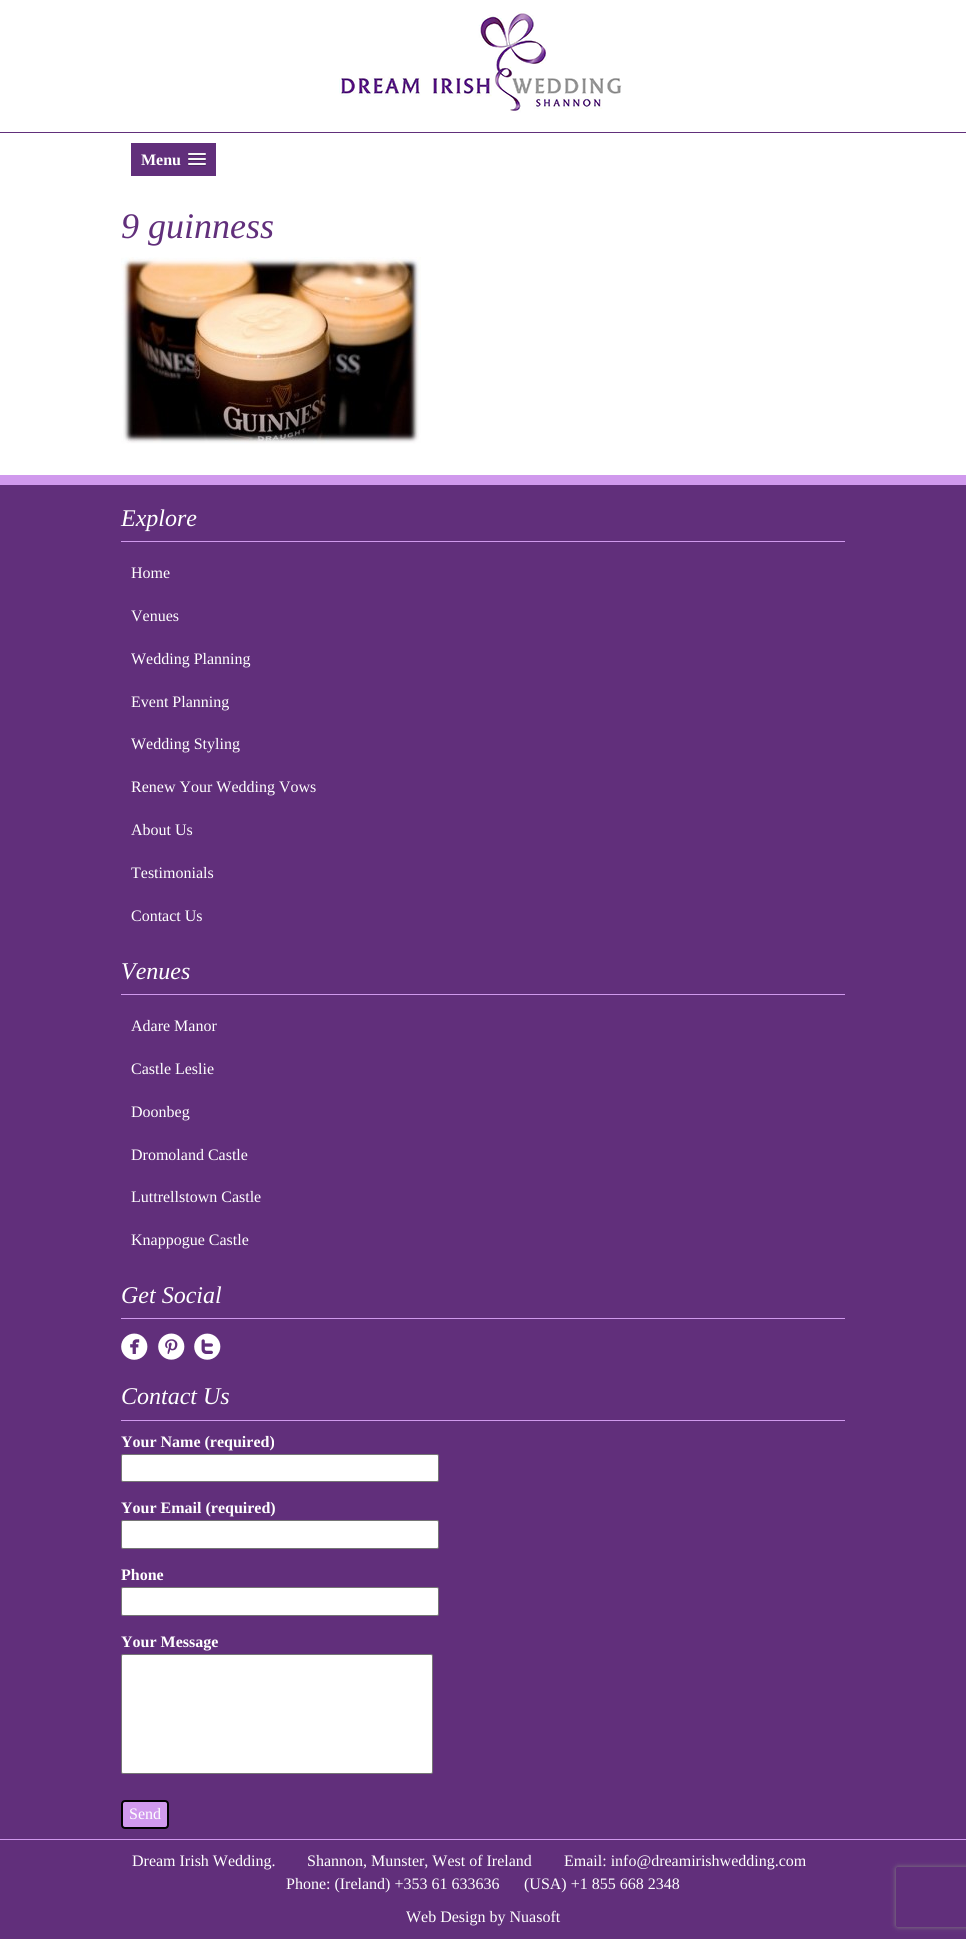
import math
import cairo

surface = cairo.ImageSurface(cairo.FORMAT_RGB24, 966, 1941)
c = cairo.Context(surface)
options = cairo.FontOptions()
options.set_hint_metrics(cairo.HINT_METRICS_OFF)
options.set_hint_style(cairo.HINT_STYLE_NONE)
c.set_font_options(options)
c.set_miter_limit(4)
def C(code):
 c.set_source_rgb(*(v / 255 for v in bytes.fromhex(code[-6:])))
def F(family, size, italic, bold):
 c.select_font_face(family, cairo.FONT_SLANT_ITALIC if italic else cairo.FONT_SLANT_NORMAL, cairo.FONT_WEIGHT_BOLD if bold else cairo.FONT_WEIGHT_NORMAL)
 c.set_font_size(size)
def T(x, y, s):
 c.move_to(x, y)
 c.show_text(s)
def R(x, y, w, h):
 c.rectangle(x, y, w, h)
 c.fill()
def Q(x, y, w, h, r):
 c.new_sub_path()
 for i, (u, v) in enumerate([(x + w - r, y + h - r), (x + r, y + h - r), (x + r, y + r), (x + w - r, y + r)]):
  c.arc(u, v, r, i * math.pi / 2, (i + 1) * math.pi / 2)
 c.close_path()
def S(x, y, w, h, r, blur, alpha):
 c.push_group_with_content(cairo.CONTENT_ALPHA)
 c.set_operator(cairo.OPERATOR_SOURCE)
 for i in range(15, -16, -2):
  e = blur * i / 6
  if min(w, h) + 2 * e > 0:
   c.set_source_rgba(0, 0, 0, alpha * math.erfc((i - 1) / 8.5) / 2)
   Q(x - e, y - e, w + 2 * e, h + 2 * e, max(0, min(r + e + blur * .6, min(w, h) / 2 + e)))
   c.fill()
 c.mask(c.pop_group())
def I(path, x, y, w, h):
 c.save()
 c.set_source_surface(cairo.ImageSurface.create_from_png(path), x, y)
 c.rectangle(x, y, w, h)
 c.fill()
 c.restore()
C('ffffff')
c.paint()
C('612f7b')
R(0,132,966,1)
I('1.png',339,11,283,102)
R(131,143,85,33)
F('Liberation Serif',16,0,1)
C('ffffff')
T(141,165,'Menu')
C('49235c')
c.new_path()
c.move_to(188,154.5)
c.curve_to(187,156.5,191.5,156,191.5,156)
c.line_to(202.5,156)
c.curve_to(202.5,156,207,156.5,206,154.5)
c.curve_to(205,155.5,198.5,155,197,155)
c.curve_to(195.5,155,189,155.5,188,154.5)
c.close_path()
c.fill()
C('f5f5f5')
Q(188,153,18,2,1)
c.fill()
C('49235c')
c.new_path()
c.move_to(188,159.5)
c.curve_to(187,161.5,191.5,161,191.5,161)
c.line_to(202.5,161)
c.curve_to(202.5,161,207,161.5,206,159.5)
c.curve_to(205,160.5,198.5,160,197,160)
c.curve_to(195.5,160,189,160.5,188,159.5)
c.close_path()
c.fill()
C('f5f5f5')
Q(188,158,18,2,1)
c.fill()
C('49235c')
c.new_path()
c.move_to(188,164.5)
c.curve_to(187,166.5,191.5,166,191.5,166)
c.line_to(202.5,166)
c.curve_to(202.5,166,207,166.5,206,164.5)
c.curve_to(205,165.5,198.5,165,197,165)
c.curve_to(195.5,165,189,165.5,188,164.5)
c.close_path()
c.fill()
C('f5f5f5')
Q(188,163,18,2,1)
c.fill()
F('Liberation Serif',36,1,0)
C('612f7b')
T(121,238,'9 guinness')
I('2.png',121,257,300,187)
R(0,485,966,1454)
C('d099ed')
R(0,475,966,10)
R(121,541,724,1)
F('Liberation Serif',24,1,0)
C('ffffff')
T(121,526,'Explore')
F('Liberation Serif',16,0,0)
T(131,578,'Home')
T(131,621,'Venues')
T(131,664,'Wedding Planning')
T(131,707,'Event Planning')
T(131,749,'Wedding Styling')
T(131,792,'Renew Your Wedding Vows')
T(131,835,'About Us')
T(131,878,'Testimonials')
T(131,921,'Contact Us')
C('d099ed')
R(121,994,724,1)
F('Liberation Serif',24,1,0)
C('ffffff')
T(121,979,'Venues')
F('Liberation Serif',16,0,0)
T(131,1031,'Adare Manor')
T(131,1074,'Castle Leslie')
T(131,1117,'Doonbeg')
T(131,1160,'Dromoland Castle')
T(131,1202,'Luttrellstown Castle')
T(131,1245,'Knappogue Castle')
C('d099ed')
R(121,1318,724,1)
F('Liberation Serif',24,1,0)
C('ffffff')
T(121,1303,'Get Social')
I('3.png',121,1333,27,27)
I('4.png',158,1333,27,27)
I('5.png',194,1333,27,27)
C('d099ed')
R(121,1420,724,1)
C('ffffff')
T(121,1404,'Contact Us')
F('Liberation Serif',16,0,1)
T(121,1447,'Your Name (required)')
Q(121.5,1454.5,317,27,1.5)
c.fill_preserve()
C('767676')
c.set_line_width(1)
c.stroke()
C('ffffff')
T(121,1513,'Your Email (required)')
Q(121.5,1520.5,317,28,1.5)
c.fill_preserve()
C('767676')
c.stroke()
C('ffffff')
T(121,1580,'Phone')
Q(121.5,1587.5,317,28,1.5)
c.fill_preserve()
C('767676')
c.stroke()
C('ffffff')
T(121,1647,'Your Message')
Q(121.5,1654.5,311,119,1.5)
c.fill_preserve()
C('767676')
c.stroke()
C('d099ed')
Q(122,1801,46,27,3)
c.fill_preserve()
C('000000')
c.set_line_width(2)
c.stroke()
F('Liberation Serif',16,0,0)
C('ffffff')
T(129,1819,'Send')
C('d099ed')
R(0,1839,966,1)
C('ffffff')
T(132,1866,'Dream Irish Wedding.')
T(307,1866,'Shannon, Munster, West of Ireland')
T(564,1866,'Email: info@dreamirishwedding.com')
T(286,1889,'Phone: (Ireland) +353 61 633636')
T(524,1889,'(USA) +1 855 668 2348')
T(406,1922,'Web Design by Nuasoft')
c.save()
c.set_fill_rule(cairo.FILL_RULE_EVEN_ODD)
c.new_path()
c.move_to(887,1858)
c.line_to(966,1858)
c.line_to(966,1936)
c.line_to(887,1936)
c.close_path()
c.move_to(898,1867)
c.line_to(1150,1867)
c.curve_to(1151,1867,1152,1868,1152,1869)
c.line_to(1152,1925)
c.curve_to(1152,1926,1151,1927,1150,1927)
c.line_to(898,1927)
c.curve_to(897,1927,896,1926,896,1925)
c.line_to(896,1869)
c.curve_to(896,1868,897,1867,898,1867)
c.close_path()
c.clip()
C('808080')
S(896,1867,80,60,2,2.5,1)
c.restore()
surface.write_to_png('o.png')
